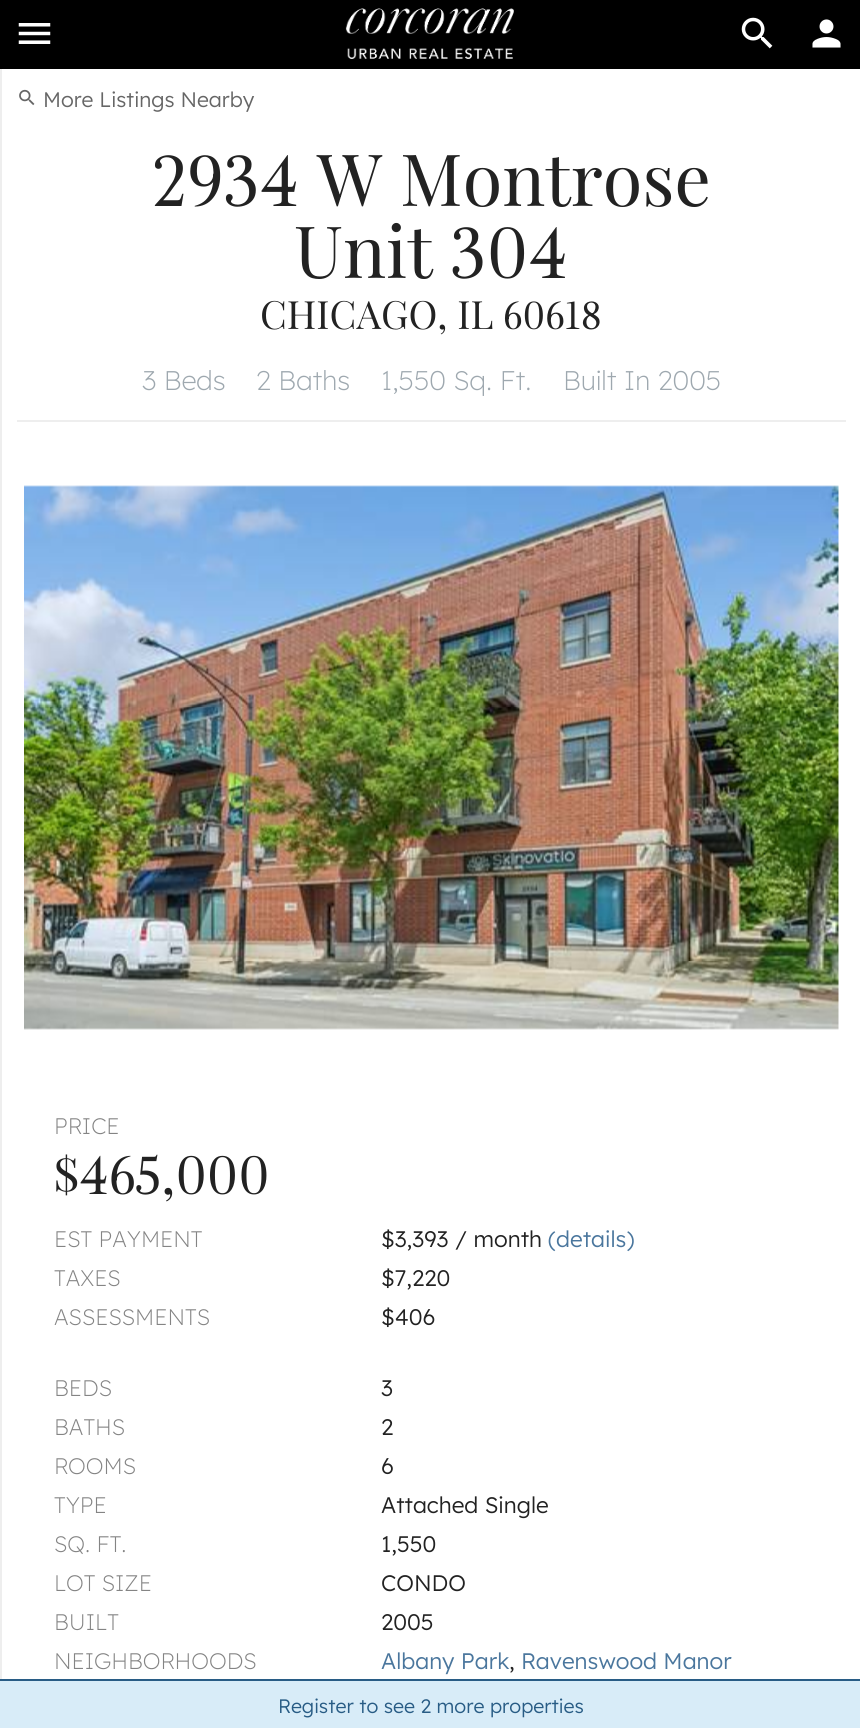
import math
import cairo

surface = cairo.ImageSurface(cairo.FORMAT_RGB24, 860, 1728)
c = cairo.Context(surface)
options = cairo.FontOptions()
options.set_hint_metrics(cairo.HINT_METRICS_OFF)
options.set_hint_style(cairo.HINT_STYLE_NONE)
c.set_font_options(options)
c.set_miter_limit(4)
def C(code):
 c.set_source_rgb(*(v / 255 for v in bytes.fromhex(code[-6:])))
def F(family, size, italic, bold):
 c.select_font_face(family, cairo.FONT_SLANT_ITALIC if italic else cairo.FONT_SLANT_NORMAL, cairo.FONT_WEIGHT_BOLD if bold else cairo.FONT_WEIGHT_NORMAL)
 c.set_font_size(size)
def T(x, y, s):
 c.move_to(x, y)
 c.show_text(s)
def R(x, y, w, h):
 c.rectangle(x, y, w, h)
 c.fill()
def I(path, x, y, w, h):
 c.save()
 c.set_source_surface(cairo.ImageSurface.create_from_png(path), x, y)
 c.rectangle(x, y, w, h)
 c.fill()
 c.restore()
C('ffffff')
c.paint()
C('000000')
R(0,0,860,69)
I('1.png',18,23,33,21)
I('2.png',345,8,169,51)
I('3.png',741,17,32,32)
I('4.png',812,19,29,29)
C('eeeeee')
R(0,69,2,1610)
I('5.png',19,89,16,17)
F('Lexend',21,0,0)
C('666666')
T(43,107,'More Listings Nearby')
F('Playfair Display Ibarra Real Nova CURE',72,0,0)
C('222222')
T(152,206,'2934 W Montrose')
T(294,278,'Unit 304')
F('Playfair Display Ibarra Real Nova CURE',39,0,0)
T(260,329,'CHICAGO, IL 60618')
C('eeeeee')
R(17,420,829,2)
F('Lexend Light',27,0,0)
C('9ea8af')
T(142,390,'3 Beds')
T(256,390,'2 Baths')
T(381,390,'1,550 Sq. Ft.')
T(563,390,'Built In 2005')
I('6.png',24,485,815,545)
F('Lexend Light',22.5,0,0)
C('848484')
T(54,1134,'PRICE')
F('Playfair Display Ibarra Real Nova CURE',54,0,0)
C('222222')
T(54,1194,'$465,000')
F('Lexend Light',22.5,0,0)
C('848484')
T(54,1247,'EST PAYMENT')
F('Lexend',22.5,0,0)
C('222222')
T(381,1247,'$3,393 / month')
C('4a769d')
T(548,1247,'(details)')
F('Lexend Light',22.5,0,0)
C('848484')
T(54,1286,'TAXES')
F('Lexend',22.5,0,0)
C('222222')
T(381,1286,'$7,220')
F('Lexend Light',22.5,0,0)
C('848484')
T(54,1325,'ASSESSMENTS')
F('Lexend',22.5,0,0)
C('222222')
T(381,1325,'$406')
F('Lexend Light',22.5,0,0)
C('848484')
T(54,1396,'BEDS')
F('Lexend',22.5,0,0)
C('222222')
T(381,1396,'3')
F('Lexend Light',22.5,0,0)
C('848484')
T(54,1435,'BATHS')
F('Lexend',22.5,0,0)
C('222222')
T(381,1435,'2')
F('Lexend Light',22.5,0,0)
C('848484')
T(54,1474,'ROOMS')
F('Lexend',22.5,0,0)
C('222222')
T(381,1474,'6')
F('Lexend Light',22.5,0,0)
C('848484')
T(54,1513,'TYPE')
F('Lexend',22.5,0,0)
C('222222')
T(381,1513,'Attached Single')
F('Lexend Light',22.5,0,0)
C('848484')
T(54,1552,'SQ. FT.')
F('Lexend',22.5,0,0)
C('222222')
T(381,1552,'1,550')
F('Lexend Light',22.5,0,0)
C('848484')
T(54,1591,'LOT SIZE')
F('Lexend',22.5,0,0)
C('222222')
T(381,1591,'CONDO')
F('Lexend Light',22.5,0,0)
C('848484')
T(54,1630,'BUILT')
F('Lexend',22.5,0,0)
C('222222')
T(381,1630,'2005')
F('Lexend Light',22.5,0,0)
C('848484')
T(54,1669,'NEIGHBORHOODS')
F('Lexend',22.5,0,0)
C('4a769d')
T(381,1669,'Albany Park')
C('222222')
T(509,1669,',')
C('4a769d')
T(521,1669,'Ravenswood Manor')
C('d8ecf8')
R(0,1681,860,47)
C('285c85')
R(0,1679,860,2)
F('Lexend',19.5,0,0)
T(278,1713,'Register to see 2 more properties')
surface.write_to_png('o.png')
